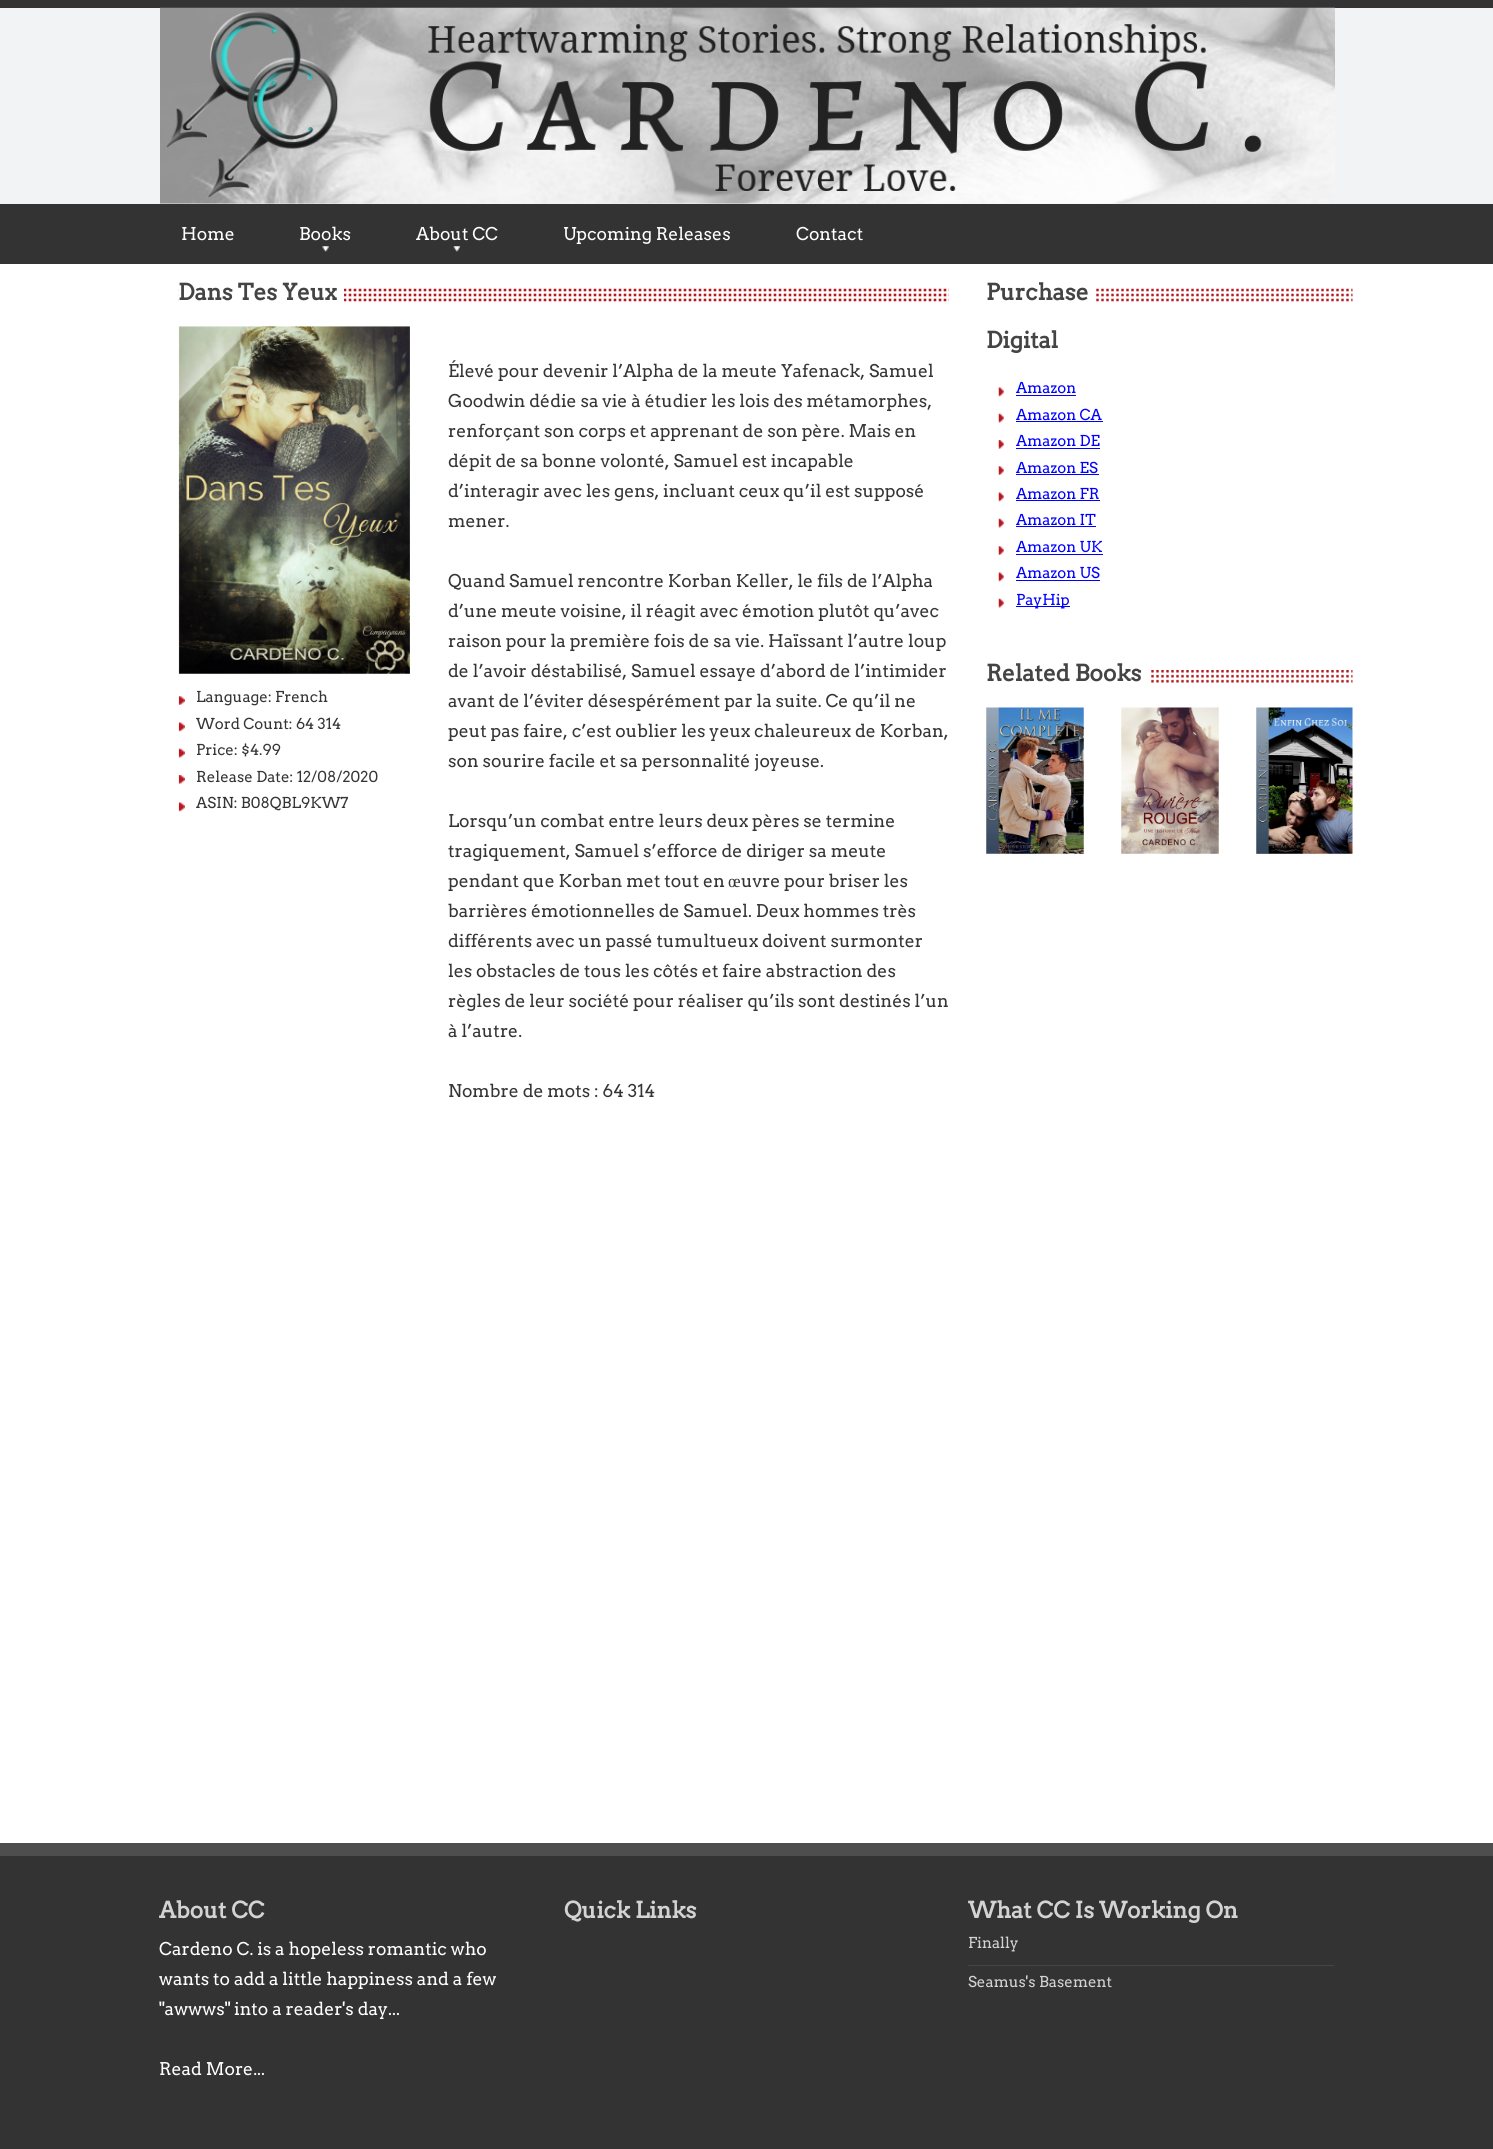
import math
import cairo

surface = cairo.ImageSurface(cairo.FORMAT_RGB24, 1493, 2149)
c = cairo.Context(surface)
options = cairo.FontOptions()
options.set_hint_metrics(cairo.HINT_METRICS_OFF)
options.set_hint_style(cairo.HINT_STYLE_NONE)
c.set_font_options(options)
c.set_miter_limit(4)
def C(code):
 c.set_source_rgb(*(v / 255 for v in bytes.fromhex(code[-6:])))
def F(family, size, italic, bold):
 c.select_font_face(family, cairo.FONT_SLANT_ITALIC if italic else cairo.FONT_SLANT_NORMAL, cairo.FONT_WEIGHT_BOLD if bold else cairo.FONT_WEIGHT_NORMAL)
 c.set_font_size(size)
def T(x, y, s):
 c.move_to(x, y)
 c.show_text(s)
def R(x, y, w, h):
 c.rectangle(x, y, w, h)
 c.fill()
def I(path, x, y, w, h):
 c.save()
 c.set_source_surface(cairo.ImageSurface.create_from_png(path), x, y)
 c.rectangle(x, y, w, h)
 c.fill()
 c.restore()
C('333333')
c.paint()
C('f1f3f4')
R(0,8,1493,196)
I('1.png',160,7,1175,197)
F('Arvo',17.5,0,0)
C('ffffff')
T(181,240,'Home')
T(299,240,'Books')
I('2.png',322,246,7,6)
T(416,240,'About CC')
I('3.png',453,246,7,6)
T(563,240,'Upcoming Releases')
T(796,240,'Contact')
R(0,264,1493,1579)
I('4.png',178,288,771,14)
R(179,288,165,14)
F('Arvo',22.5,0,1)
C('444444')
T(178,300,'Dans Tes Yeux')
I('5.png',178,326,232,348)
I('6.png',178,696,7,9)
F('Arvo',15,0,0)
C('353535')
T(196,702,'Language: French')
I('7.png',178,722,7,10)
T(196,729,'Word Count: 64 314')
I('8.png',178,748,7,10)
T(196,755,'Price: $4.99')
I('9.png',178,775,7,9)
T(196,782,'Release Date: 12/08/2020')
I('7.png',178,802,7,10)
T(196,808,'ASIN: B08QBL9KW7')
F('Arvo',17.5,0,0)
T(448,377,'Élevé pour devenir l’Alpha de la meute Yafenack, Samuel')
T(448,407,'Goodwin dédie sa vie à étudier les lois des métamorphes,')
T(448,437,'renforçant son corps et apprenant de son père. Mais en')
T(448,467,'dépit de sa bonne volonté, Samuel est incapable')
T(448,497,'d’interagir avec les gens, incluant ceux qu’il est supposé')
T(448,527,'mener.')
T(448,587,'Quand Samuel rencontre Korban Keller, le fils de l’Alpha')
T(448,617,'d’une meute voisine, il réagit avec émotion plutôt qu’avec')
T(448,647,'raison pour la première fois de sa vie. Haïssant l’autre loup')
T(448,677,'de l’avoir déstabilisé, Samuel essaye d’abord de l’intimider')
T(448,707,'avant de l’éviter désespérément par la suite. Ce qu’il ne')
T(448,737,'peut pas faire, c’est oublier les yeux chaleureux de Korban,')
T(448,767,'son sourire facile et sa personnalité joyeuse.')
T(448,827,'Lorsqu’un combat entre leurs deux pères se termine')
T(448,857,'tragiquement, Samuel s’efforce de diriger sa meute')
T(448,887,'pendant que Korban met tout en')
F('Liberation Serif',17.5,0,0)
T(728,887,'œ')
F('Arvo',17.5,0,0)
T(741,887,'uvre pour briser les')
T(448,917,'barrières émotionnelles de Samuel. Deux hommes très')
T(448,947,'différents avec un passé tumultueux doivent surmonter')
T(448,977,'les obstacles de tous les côtés et faire abstraction des')
T(448,1007,'règles de leur société pour réaliser qu’ils sont destinés l’un')
T(448,1037,'à l’autre.')
T(448,1097,'Nombre de mots : 64 314')
I('10.png',1095,288,258,14)
F('Arvo',22.5,0,1)
C('444444')
T(986,300,'Purchase')
T(986,348,'Digital')
I('11.png',998,387,6,10)
F('Arvo',15,0,0)
C('0000ff')
T(1016,393,'Amazon')
R(1016,395,60,1)
I('12.png',998,413,6,10)
T(1016,420,'Amazon CA')
R(1016,421,87,1)
I('13.png',998,440,6,9)
T(1016,446,'Amazon DE')
R(1016,448,84,1)
I('14.png',998,466,6,9)
T(1016,473,'Amazon ES')
R(1016,474,83,1)
I('11.png',998,492,6,10)
T(1016,499,'Amazon FR')
R(1016,500,84,1)
I('12.png',998,518,6,10)
T(1016,525,'Amazon IT')
R(1016,526,80,1)
I('14.png',998,546,6,9)
T(1016,552,'Amazon UK')
R(1016,554,87,1)
I('11.png',998,572,6,10)
T(1016,578,'Amazon US')
R(1016,580,84,1)
I('12.png',998,598,6,10)
R(1016,606,54,1)
T(1016,605,'PayHip')
I('15.png',1149,670,204,13)
F('Arvo',22.5,0,1)
C('444444')
T(986,681,'Related Books')
I('16.png',986,707,98,147)
I('17.png',1121,707,98,147)
I('18.png',1256,707,97,147)
C('4e4e4e')
R(0,1843,1493,13)
C('d3d3d3')
T(159,1918,'About CC')
F('Arvo',17.5,0,0)
C('ffffff')
T(159,1955,'Cardeno C. is a hopeless romantic who')
T(159,1985,'wants to add a little happiness and a few')
T(159,2015,'"awwws" into a reader\'s day...')
T(159,2075,'Read More...')
F('Arvo',22.5,0,1)
C('d3d3d3')
T(564,1918,'Quick Links')
T(968,1918,'What CC Is Working On')
C('454545')
R(968,1965,366,1)
F('Arvo',15,0,0)
C('d3d3d3')
T(968,1948,'Finally')
T(968,1987,'Seamus\'s Basement')
surface.write_to_png('o.png')
